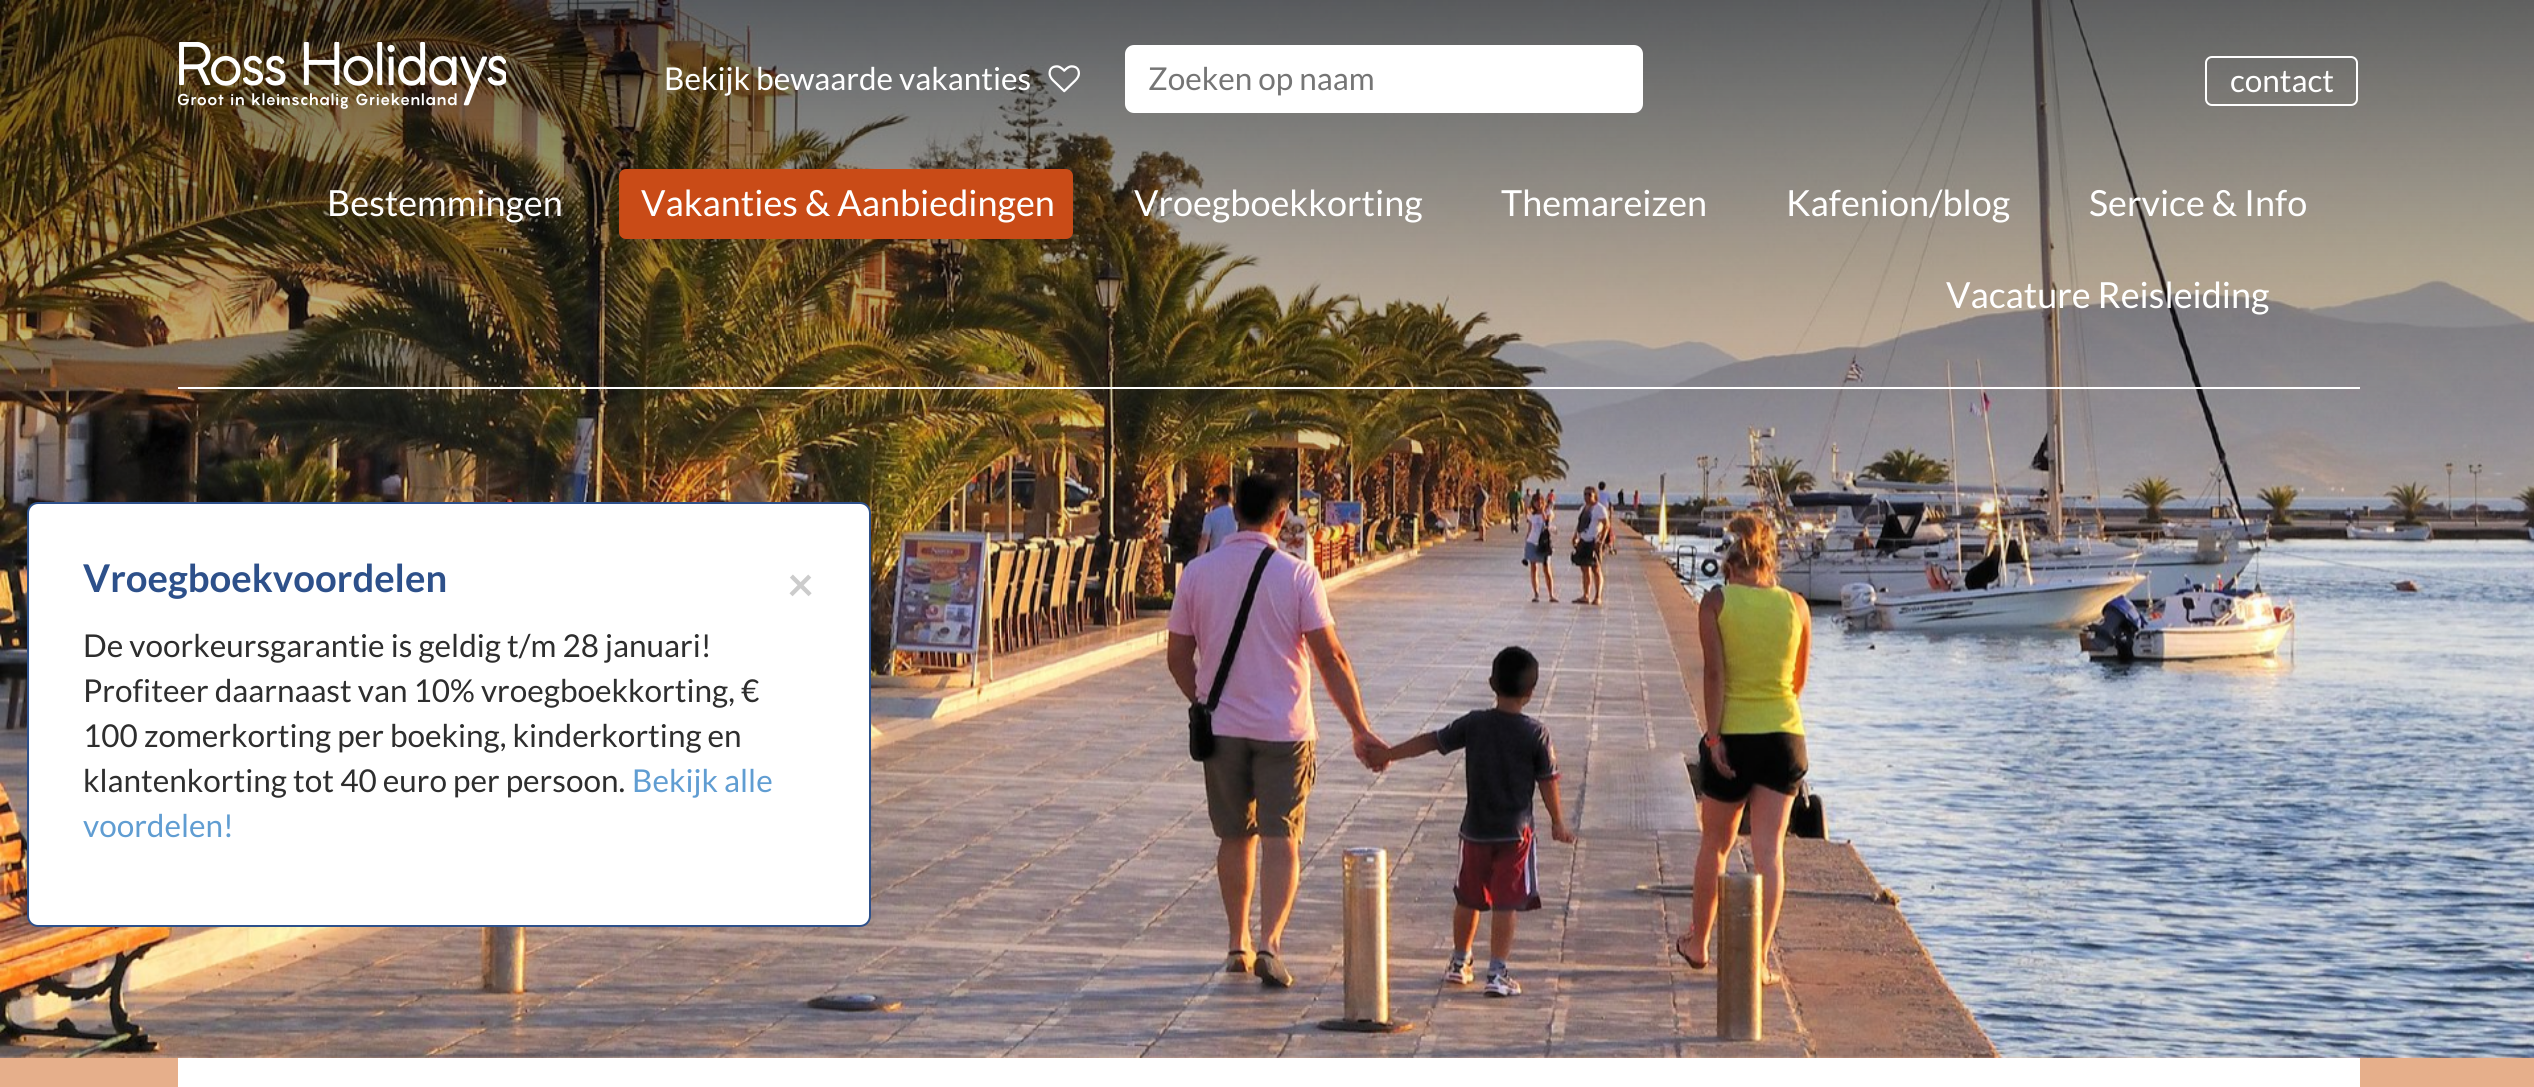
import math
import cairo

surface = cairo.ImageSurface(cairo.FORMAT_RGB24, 2534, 1087)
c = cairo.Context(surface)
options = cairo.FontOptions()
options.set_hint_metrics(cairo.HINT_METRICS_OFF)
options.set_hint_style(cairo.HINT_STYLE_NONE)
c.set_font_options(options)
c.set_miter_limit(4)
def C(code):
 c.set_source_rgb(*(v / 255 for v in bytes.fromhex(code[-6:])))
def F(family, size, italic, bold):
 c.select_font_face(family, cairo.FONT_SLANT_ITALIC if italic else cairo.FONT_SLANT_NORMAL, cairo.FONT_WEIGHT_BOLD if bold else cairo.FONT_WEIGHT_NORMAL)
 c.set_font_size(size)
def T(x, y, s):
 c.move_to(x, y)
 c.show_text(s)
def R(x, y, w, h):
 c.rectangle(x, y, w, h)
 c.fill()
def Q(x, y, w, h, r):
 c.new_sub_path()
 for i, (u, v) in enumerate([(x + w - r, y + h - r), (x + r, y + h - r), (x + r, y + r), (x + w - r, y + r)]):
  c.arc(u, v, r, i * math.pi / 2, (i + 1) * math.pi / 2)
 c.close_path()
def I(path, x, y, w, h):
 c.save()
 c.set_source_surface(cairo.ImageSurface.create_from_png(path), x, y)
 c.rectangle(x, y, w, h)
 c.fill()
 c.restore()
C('ffffff')
c.paint()
gradient = cairo.LinearGradient(1268,0,1268,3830)
gradient.add_color_stop_rgba(.62,0.902,0.686,0.545,1)
gradient.add_color_stop_rgba(1,0.996,0.843,0.737,1)
c.set_source(gradient)
R(0,1056,2534,31)
I('1.png',0,0,2534,1058)
I('2.png',178,42,328,67)
F('Lato',31.5,0,0)
C('ffffff')
T(664,90,'Bekijk bewaarde vakanties')
I('3.png',1048,65,32,28)
Q(2206,57,151,48,6)
c.stroke()
T(2230,92,'contact')
Q(1125,45,518,68,9)
c.fill()
C('757575')
T(1148,90,'Zoeken op naam')
C('ffffff')
R(178,387,2182,2)
F('Lato',36,0,0)
T(327,216,'Bestemmingen')
C('c94b17')
Q(619,169,454,70,7)
c.fill()
C('ffffff')
T(641,216,'Vakanties & Aanbiedingen')
T(1134,216,'Vroegboekkorting')
T(1501,216,'Themareizen')
T(1786,216,'Kafenion/blog')
T(2089,216,'Service & Info')
T(1946,308,'Vacature Reisleiding')
Q(28,503,842,423,10)
c.fill_preserve()
C('2d508a')
c.stroke()
F('Lato',38.25,0,1)
T(83,592,'Vroegboekvoordelen')
F('Lato',47,0,1)
C('cccccc')
T(787,601,'×')
F('Lato',31.5,0,0)
C('2e2e2e')
T(83,657,'De voorkeursgarantie is geldig t/m 28 januari!')
T(83,702,'Profiteer daarnaast van 10% vroegboekkorting, €')
T(83,747,'100 zomerkorting per boeking, kinderkorting en')
T(83,792,'klantenkorting tot 40 euro per persoon.')
C('609dd2')
T(632,792,'Bekijk alle')
T(83,837,'voordelen!')
C('ffffff')
R(178,1058,2182,29)
surface.write_to_png('o.png')
